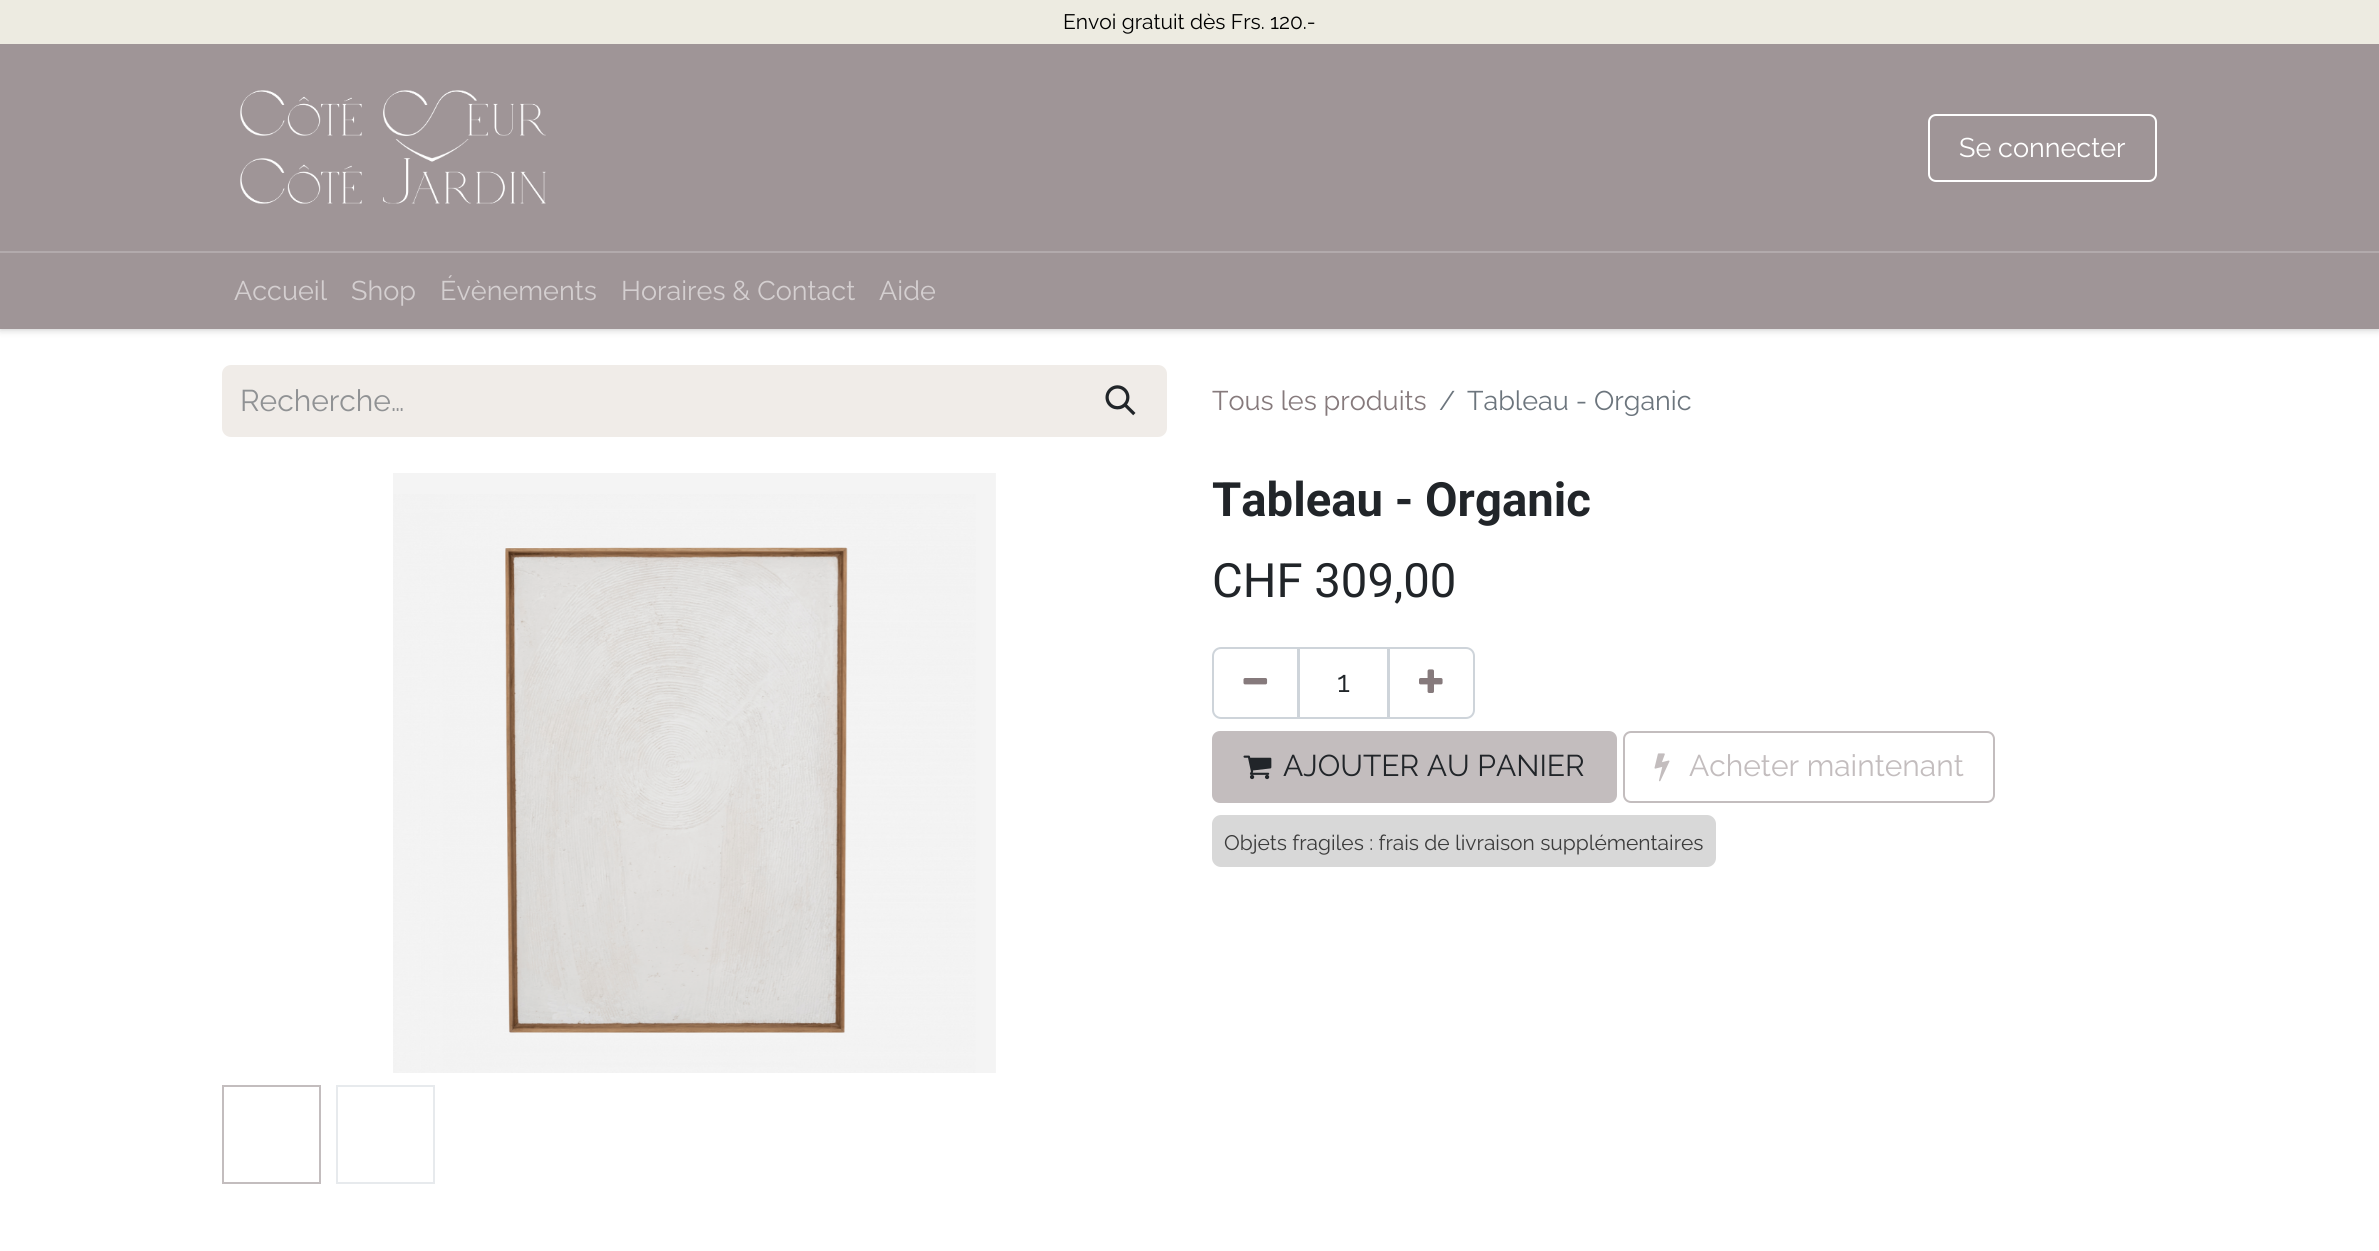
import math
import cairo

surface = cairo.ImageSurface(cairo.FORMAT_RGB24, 2379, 1251)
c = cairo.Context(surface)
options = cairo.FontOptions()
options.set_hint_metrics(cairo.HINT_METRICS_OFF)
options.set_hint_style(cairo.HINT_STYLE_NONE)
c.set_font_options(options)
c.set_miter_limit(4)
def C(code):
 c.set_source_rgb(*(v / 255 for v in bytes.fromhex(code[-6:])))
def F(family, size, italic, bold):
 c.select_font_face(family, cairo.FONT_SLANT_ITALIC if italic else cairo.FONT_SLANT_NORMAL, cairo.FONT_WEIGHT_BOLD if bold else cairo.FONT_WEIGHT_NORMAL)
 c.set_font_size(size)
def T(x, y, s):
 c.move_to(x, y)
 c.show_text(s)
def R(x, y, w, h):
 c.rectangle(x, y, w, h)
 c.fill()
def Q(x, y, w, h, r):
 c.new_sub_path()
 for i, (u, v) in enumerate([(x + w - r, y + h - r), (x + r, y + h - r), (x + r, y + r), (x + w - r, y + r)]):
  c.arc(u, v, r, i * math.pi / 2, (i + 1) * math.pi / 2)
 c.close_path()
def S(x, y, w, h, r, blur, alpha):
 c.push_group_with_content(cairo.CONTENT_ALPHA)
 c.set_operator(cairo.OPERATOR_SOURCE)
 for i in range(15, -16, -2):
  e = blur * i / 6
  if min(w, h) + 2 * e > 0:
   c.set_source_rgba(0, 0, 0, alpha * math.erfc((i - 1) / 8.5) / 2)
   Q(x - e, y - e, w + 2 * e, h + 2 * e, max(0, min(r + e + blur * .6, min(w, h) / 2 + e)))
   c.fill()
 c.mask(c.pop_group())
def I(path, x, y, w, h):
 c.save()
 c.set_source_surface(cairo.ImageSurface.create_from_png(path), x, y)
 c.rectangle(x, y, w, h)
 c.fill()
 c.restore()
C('ffffff')
c.paint()
C('000000')
S(0,0,2379,329,0,4,.25)
C('9f9597')
R(0,44,2379,285)
C('edebe1')
R(0,0,2379,44)
F('Raleway',21,0,0)
C('000000')
T(1063,29,'Envoi gratuit dès Frs. 120.-')
I('1.png',240,90,306,114)
Q(1929,115,227,66,7)
C('ffffff')
c.stroke()
F('Raleway',27,0,0)
T(1959,157,'Se connecter')
C('b2aaac')
R(0,251,2379,2)
C('d4cfd0')
T(234,300,'Accueil')
T(351,300,'Shop')
T(440,300,'Évènements')
T(621,300,'Horaires & Contact')
T(879,300,'Aide')
C('f0ece8')
c.new_path()
c.move_to(231,365)
c.line_to(1076,365)
c.line_to(1076,437)
c.line_to(231,437)
c.curve_to(226,437,222,433,222,428)
c.line_to(222,374)
c.curve_to(222,369,226,365,231,365)
c.close_path()
c.fill()
F('Raleway',30,0,0)
C('909294')
T(240,411,'Recherche…')
C('f0ece8')
c.new_path()
c.move_to(1075,366)
c.line_to(1158,366)
c.curve_to(1162.5,366,1166,369.5,1166,374)
c.line_to(1166,428)
c.curve_to(1166,432.5,1162.5,436,1158,436)
c.line_to(1075,436)
c.close_path()
c.fill_preserve()
c.stroke()
I('2.png',1105,385,31,31)
F('Raleway',27,0,0)
C('867a7c')
T(1212,410,'Tous les produits')
C('6c757d')
T(1439,410,'/')
T(1467,410,'Tableau - Organic')
I('3.png',393,473,603,600)
c.rectangle(223,1086,97,97)
C('c3bdbe')
c.stroke()
c.rectangle(337,1086,97,97)
C('e7eaed')
c.stroke()
F('Roboto',47.25,0,1)
C('212529')
T(1212,516,'Tableau - Organic')
F('Roboto',47.25,0,0)
T(1212,597,'CHF 309,00')
c.rectangle(1299,648,89,70)
C('ced4da')
c.stroke()
c.new_path()
c.move_to(1221,648)
c.line_to(1298,648)
c.line_to(1298,718)
c.line_to(1221,718)
c.curve_to(1216.5,718,1213,714.5,1213,710)
c.line_to(1213,656)
c.curve_to(1213,651.5,1216.5,648,1221,648)
c.close_path()
c.stroke()
I('4.png',1243,678,25,7)
F('Raleway',30,0,0)
C('212529')
T(1337,692,'1')
c.new_path()
c.move_to(1389,648)
c.line_to(1466,648)
c.curve_to(1470.5,648,1474,651.5,1474,656)
c.line_to(1474,710)
c.curve_to(1474,714.5,1470.5,718,1466,718)
c.line_to(1389,718)
c.close_path()
C('ced4da')
c.stroke()
I('5.png',1419,669,24,24)
C('c3bdbe')
Q(1213,732,403,70,7)
c.fill_preserve()
c.stroke()
I('6.png',1243,755,29,25)
C('212529')
T(1283,776,'AJOUTER AU PANIER')
Q(1624,732,370,70,7)
C('c3bdbe')
c.stroke()
I('7.png',1654,753,16,29)
T(1689,776,'Acheter maintenant')
F('Raleway',21,0,0)
C('3c3c3c')
T(1224,850,'Objets fragiles : frais de livraison supplémentaires')
c.set_source_rgba(0.235,0.235,0.235,0.2)
Q(1212,815,504,52,9)
c.fill()
surface.write_to_png('o.png')
